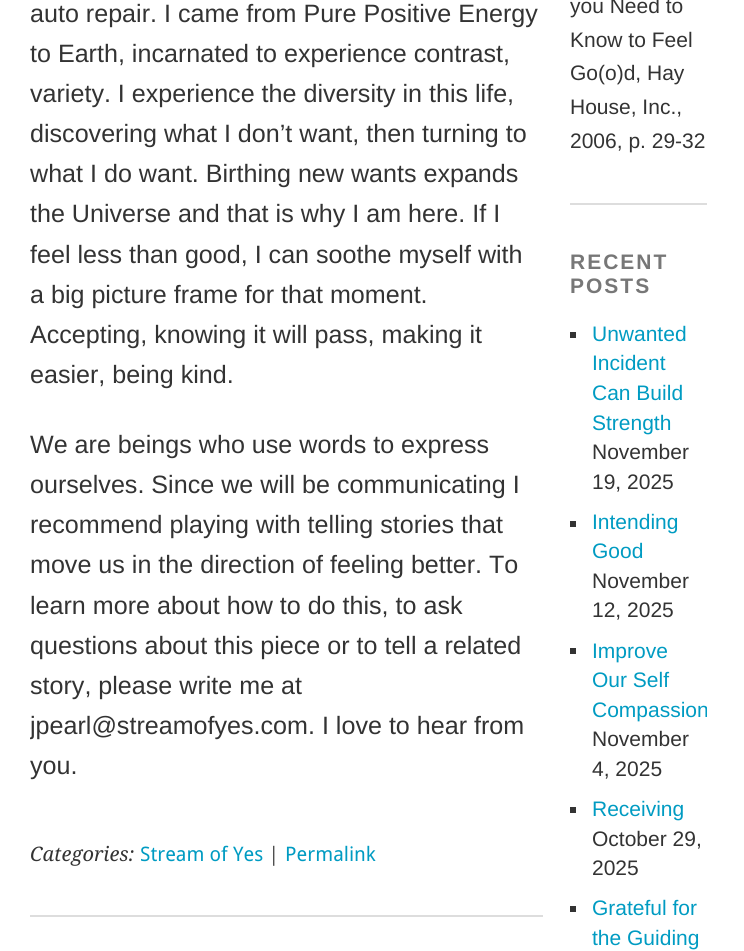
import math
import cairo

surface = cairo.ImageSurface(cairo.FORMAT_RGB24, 744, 951)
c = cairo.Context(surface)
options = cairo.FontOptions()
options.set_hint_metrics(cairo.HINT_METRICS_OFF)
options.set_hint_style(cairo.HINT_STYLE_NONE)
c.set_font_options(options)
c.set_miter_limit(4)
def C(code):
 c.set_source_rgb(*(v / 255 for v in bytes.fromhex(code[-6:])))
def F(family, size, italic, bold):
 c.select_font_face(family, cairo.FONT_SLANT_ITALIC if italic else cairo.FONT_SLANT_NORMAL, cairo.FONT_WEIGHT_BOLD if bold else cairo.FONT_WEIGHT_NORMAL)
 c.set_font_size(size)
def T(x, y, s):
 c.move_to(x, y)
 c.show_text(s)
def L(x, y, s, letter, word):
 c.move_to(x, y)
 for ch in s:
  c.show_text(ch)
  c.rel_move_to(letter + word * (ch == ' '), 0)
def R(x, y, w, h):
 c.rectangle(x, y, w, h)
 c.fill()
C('ffffff')
c.paint()
C('dddddd')
R(30,915,513,2)
F('Liberation Sans',25.1,0,0)
C('333333')
T(30,22,'auto repair. I came from Pure Positive Energy')
T(30,62,'to Earth, incarnated to experience contrast,')
T(30,102,'variety. I experience the diversity in this life,')
T(30,142,'discovering what I don’t want, then turning to')
T(30,182,'what I do want. Birthing new wants expands')
T(30,222,'the Universe and that is why I am here. If I')
T(30,263,'feel less than good, I can soothe myself with')
T(30,303,'a big picture frame for that moment.')
T(30,343,'Accepting, knowing it will pass, making it')
T(30,383,'easier, being kind.')
T(30,453,'We are beings who use words to express')
T(30,493,'ourselves. Since we will be communicating I')
T(30,533,'recommend playing with telling stories that')
T(30,573,'move us in the direction of feeling better. To')
T(30,614,'learn more about how to do this, to ask')
T(30,654,'questions about this piece or to tell a related')
T(30,694,'story, please write me at')
c.save()
c.rectangle(30,0,513,915)
c.clip()
T(30,734,'jpearl@streamofyes.com. I love to hear from')
c.restore()
T(30,774,'you.')
F('Droid Serif',20,1,0)
T(30,861,'Categories:')
F('Droid Sans',20,0,0)
C('009bc2')
T(140,861,'Stream of Yes')
F('Droid Serif',20,1,0)
C('333333')
T(268,861,'|')
F('Droid Sans',20,0,0)
C('009bc2')
T(285,861,'Permalink')
C('dddddd')
R(570,203,137,2)
F('Liberation Sans',21,0,0)
C('333333')
T(570,13,'you Need to')
T(570,47,'Know to Feel')
T(570,80,'Go(o)d, Hay')
T(570,114,'House, Inc.,')
T(570,148,'2006, p. 29-32')
F('Liberation Sans',21,0,1)
C('777777')
L(570,269,'RECENT',2,0)
L(570,293,'POSTS',2,0)
C('333333')
R(570,332,6,6)
F('Liberation Sans',21,0,0)
C('009bc2')
T(592,341,'Unwanted')
T(592,370,'Incident')
T(592,400,'Can Build')
T(592,430,'Strength')
C('333333')
T(592,459,'November')
T(592,489,'19, 2025')
R(570,521,6,6)
C('009bc2')
T(592,529,'Intending')
T(592,558,'Good')
C('333333')
T(592,588,'November')
T(592,617,'12, 2025')
R(570,648,6,6)
C('009bc2')
T(592,658,'Improve')
T(592,687,'Our Self')
c.save()
c.rectangle(570,249,137,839)
c.clip()
T(592,717,'Compassion')
c.restore()
C('333333')
T(592,746,'November')
T(592,776,'4, 2025')
R(570,807,6,6)
C('009bc2')
T(592,816,'Receiving')
C('333333')
T(592,846,'October 29,')
T(592,875,'2025')
R(570,906,6,6)
C('009bc2')
T(592,915,'Grateful for')
T(592,945,'the Guiding')
surface.write_to_png('o.png')
